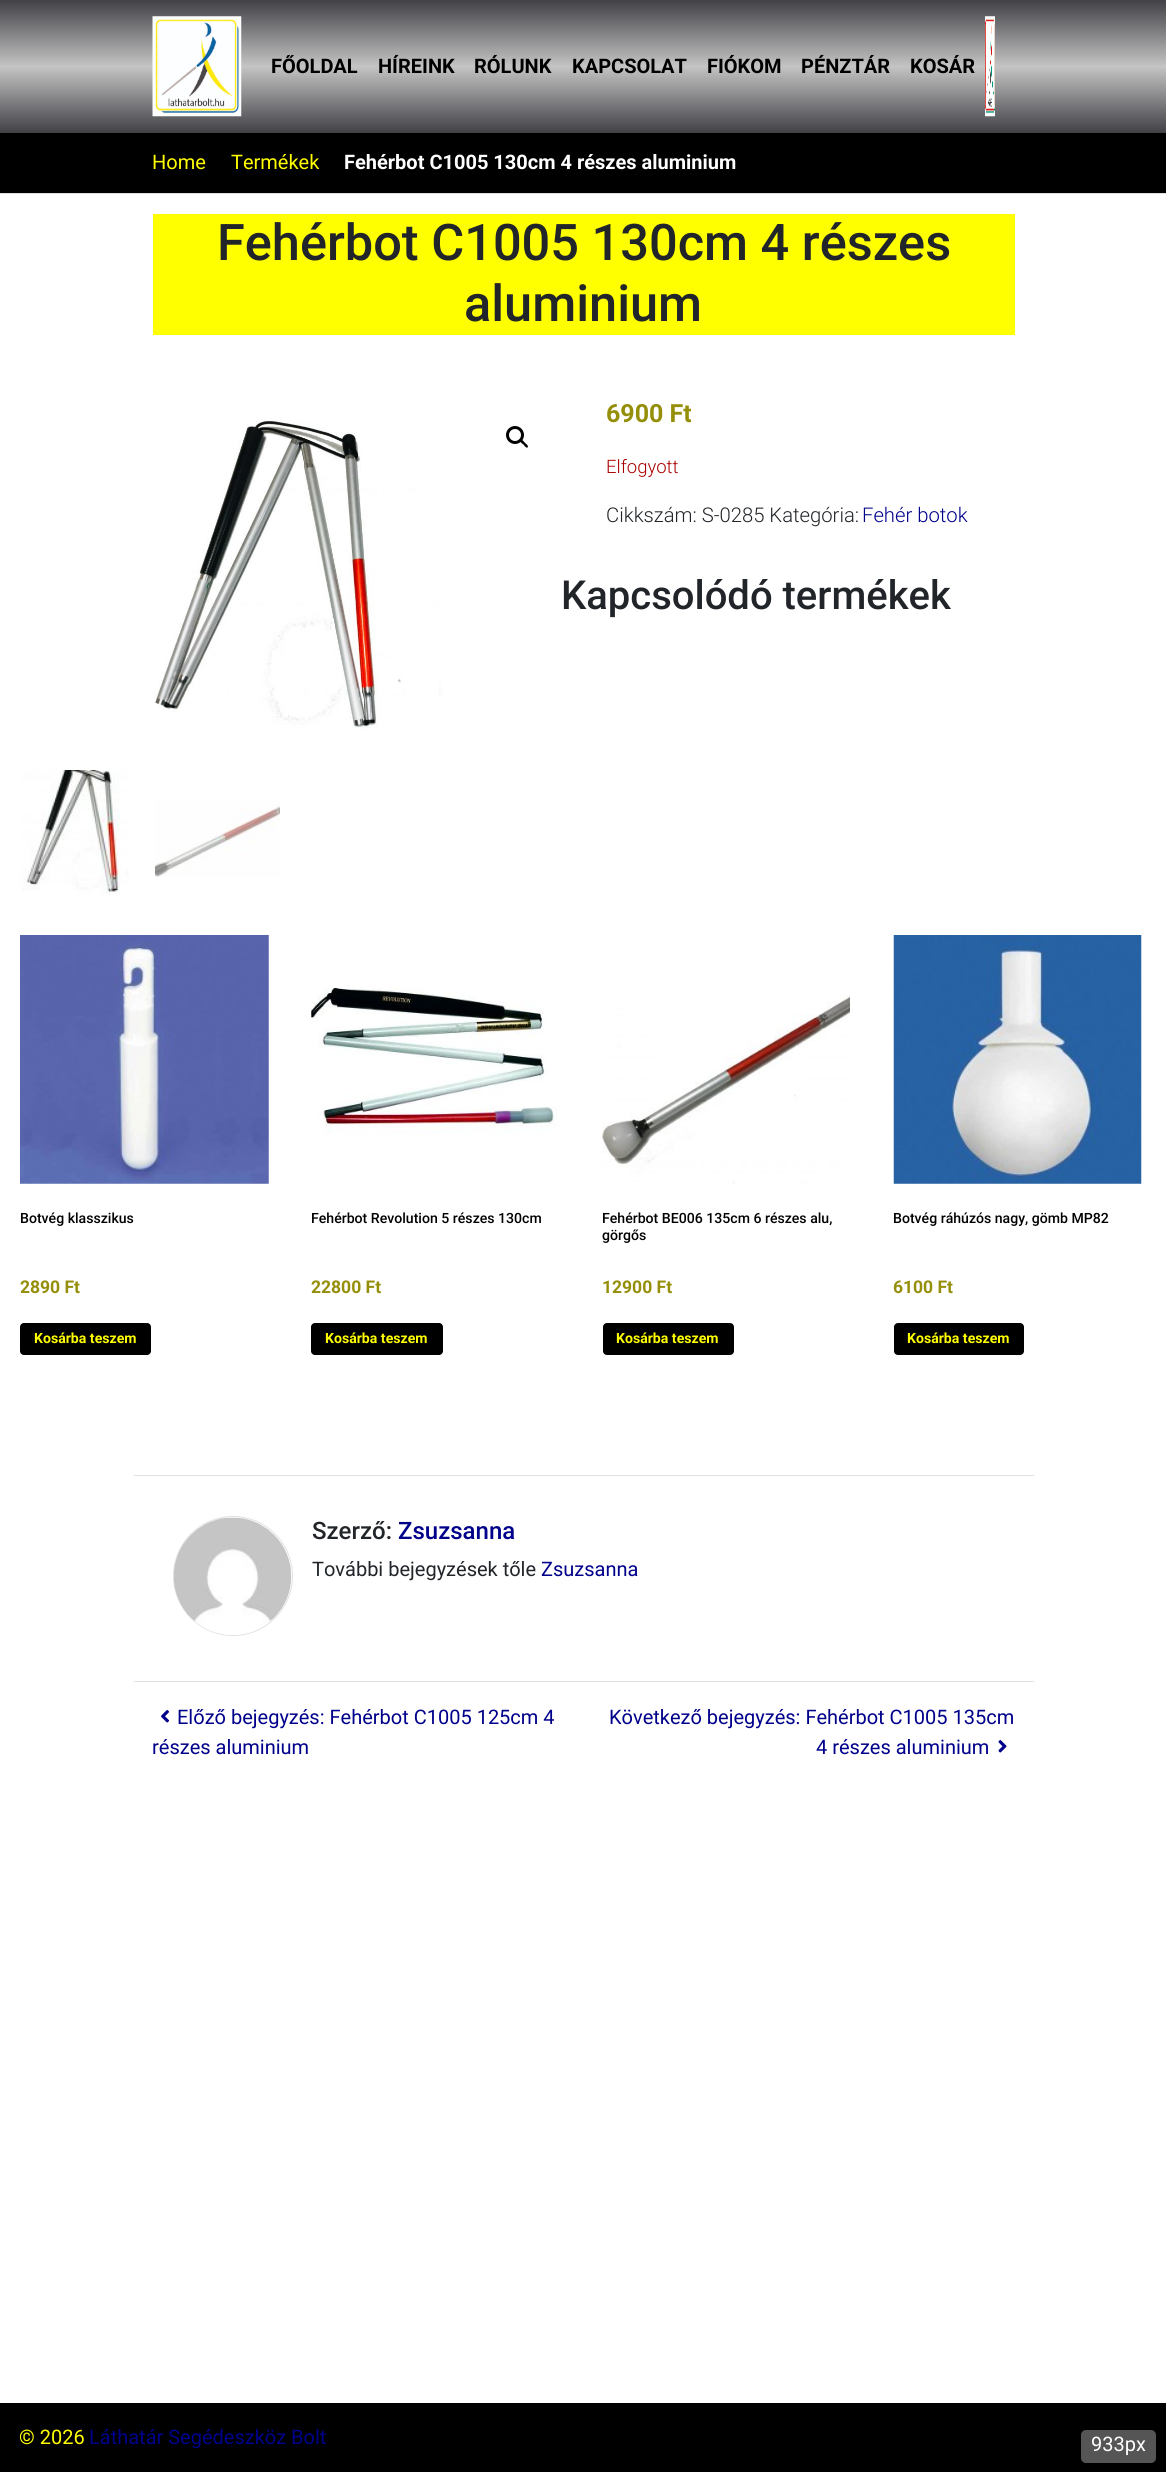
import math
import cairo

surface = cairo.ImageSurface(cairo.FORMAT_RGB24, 1166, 2472)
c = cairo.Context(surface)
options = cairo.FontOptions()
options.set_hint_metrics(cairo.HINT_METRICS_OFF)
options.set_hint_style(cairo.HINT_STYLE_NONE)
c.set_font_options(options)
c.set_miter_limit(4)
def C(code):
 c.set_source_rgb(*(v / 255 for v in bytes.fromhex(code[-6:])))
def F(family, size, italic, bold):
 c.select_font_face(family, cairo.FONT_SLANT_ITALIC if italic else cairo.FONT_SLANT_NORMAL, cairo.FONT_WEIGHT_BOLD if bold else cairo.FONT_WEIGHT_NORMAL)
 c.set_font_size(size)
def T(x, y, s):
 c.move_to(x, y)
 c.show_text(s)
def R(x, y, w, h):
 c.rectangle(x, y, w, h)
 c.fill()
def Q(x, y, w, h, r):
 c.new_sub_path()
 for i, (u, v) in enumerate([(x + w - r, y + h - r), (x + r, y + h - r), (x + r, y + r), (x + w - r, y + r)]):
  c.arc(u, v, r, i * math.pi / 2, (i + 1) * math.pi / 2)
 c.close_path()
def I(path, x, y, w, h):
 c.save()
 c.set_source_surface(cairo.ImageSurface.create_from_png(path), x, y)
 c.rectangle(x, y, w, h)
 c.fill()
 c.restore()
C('ffffff')
c.paint()
gradient = cairo.LinearGradient(583,0,583,133)
gradient.add_color_stop_rgba(0,0.255,0.255,0.275,1)
gradient.add_color_stop_rgba(.5,0.769,0.769,0.769,1)
gradient.add_color_stop_rgba(1,0.255,0.255,0.275,1)
c.set_source(gradient)
R(0,0,1166,133)
I('1.png',152,16,90,101)
F('Roboto',20,0,1)
C('000000')
T(271,73,'FŐOLDAL')
T(378,73,'HÍREINK')
T(474,73,'RÓLUNK')
T(572,73,'KAPCSOLAT')
T(707,73,'FIÓKOM')
T(801,73,'PÉNZTÁR')
T(910,73,'KOSÁR')
I('2.png',985,16,10,101)
R(0,133,1166,60)
C('dee2e6')
R(0,193,1166,1)
F('Roboto',20,0,0)
C('ffff00')
T(152,169,'Home')
T(231,169,'Termékek')
F('Roboto',20,0,1)
C('ffffff')
T(344,169,'Fehérbot C1005 130cm 4 részes aluminium')
C('ffff00')
R(153,214,862,121)
F('Roboto Medium',50.5,0,0)
C('212529')
T(217,260,'Fehérbot C1005 130cm 4 részes')
T(464,321,'aluminium')
I('3.png',154,420,288,309)
c.arc(515,435,7.5,0,2 * math.pi)
C('000000')
c.set_line_width(3)
c.stroke()
c.new_path()
c.move_to(520.5,440)
c.curve_to(522,439,524.5,442,525,443)
c.curve_to(526,443.5,529,446,527.5,447.5)
c.curve_to(526.5,448.5,524,445.5,523.5,444.5)
c.curve_to(522.5,444,519,441.5,520.5,440)
c.close_path()
c.fill()
I('4.png',20,770,109,125)
I('5.png',155,800,125,77)
F('Roboto',25,0,1)
C('958e09')
T(606,422,'6900 Ft')
F('Roboto Light',18.5,0,0)
C('aa0000')
T(606,473,'Elfogyott')
F('Roboto Light',20.25,0,0)
C('212529')
T(606,522,'Cikkszám: S-0285 Kategória:')
C('00008b')
T(862,522,'Fehér botok')
F('Roboto Medium',40,0,0)
C('212529')
T(561,609,'Kapcsolódó termékek')
I('6.png',20,935,249,249)
F('Roboto Medium',14.1,0,0)
C('000000')
T(20,1223,'Botvég klasszikus')
F('Roboto',17.5,0,1)
C('958e09')
T(20,1293,'2890 Ft')
C('000000')
Q(20,1323,131,32,4)
c.fill()
F('Roboto',14.1,0,1)
C('ffff00')
T(34,1343,'Kosárba teszem')
I('7.png',311,987,246,147)
F('Roboto Medium',14.1,0,0)
C('000000')
T(311,1223,'Fehérbot Revolution 5 részes 130cm')
F('Roboto',17.5,0,1)
C('958e09')
T(311,1293,'22800 Ft')
C('000000')
Q(311,1323,132,32,4)
c.fill()
F('Roboto',14.1,0,1)
C('ffff00')
T(325,1343,'Kosárba teszem')
I('8.png',602,995,248,189)
F('Roboto Medium',14.1,0,0)
C('000000')
T(602,1223,'Fehérbot BE006 135cm 6 részes alu,')
T(602,1240,'görgős')
F('Roboto',17.5,0,1)
C('958e09')
T(602,1293,'12900 Ft')
C('000000')
Q(603,1323,131,32,4)
c.fill()
F('Roboto',14.1,0,1)
C('ffff00')
T(616,1343,'Kosárba teszem')
I('9.png',893,935,249,249)
F('Roboto Medium',14.1,0,0)
C('000000')
T(893,1223,'Botvég ráhúzós nagy, gömb MP82')
F('Roboto',17.5,0,1)
C('958e09')
T(893,1293,'6100 Ft')
C('000000')
Q(894,1323,130,32,4)
c.fill()
F('Roboto',14.1,0,1)
C('ffff00')
T(907,1343,'Kosárba teszem')
C('dee2e6')
R(134,1475,900,1)
c.new_path()
c.arc(233,1576,59.5,0,2 * math.pi)
c.set_line_width(1)
c.stroke()
I('10.png',174,1517,118,118)
F('Roboto Medium',24,0,0)
C('212529')
T(312,1539,'Szerző:')
C('00008b')
T(398,1539,'Zsuzsanna')
F('Roboto',20,0,0)
C('212529')
T(312,1576,'További bejegyzések tőle')
C('00008b')
T(541,1576,'Zsuzsanna')
C('dee2e6')
R(134,1681,900,1)
I('11.png',161,1710,8,13)
C('00008b')
T(177,1724,'Előző bejegyzés: Fehérbot C1005 125cm 4')
T(152,1754,'részes aluminium')
T(609,1724,'Következő bejegyzés: Fehérbot C1005 135cm')
T(816,1754,'4 részes aluminium')
I('12.png',998,1740,9,13)
C('000000')
R(0,2403,1166,69)
C('ffff00')
T(19,2444,'© 2026')
C('00008b')
T(89,2444,'Láthatár Segédeszköz Bolt')
C('555555')
Q(1081,2430,75,33,5)
c.fill()
C('ffffff')
T(1091,2451,'933px')
surface.write_to_png('o.png')
